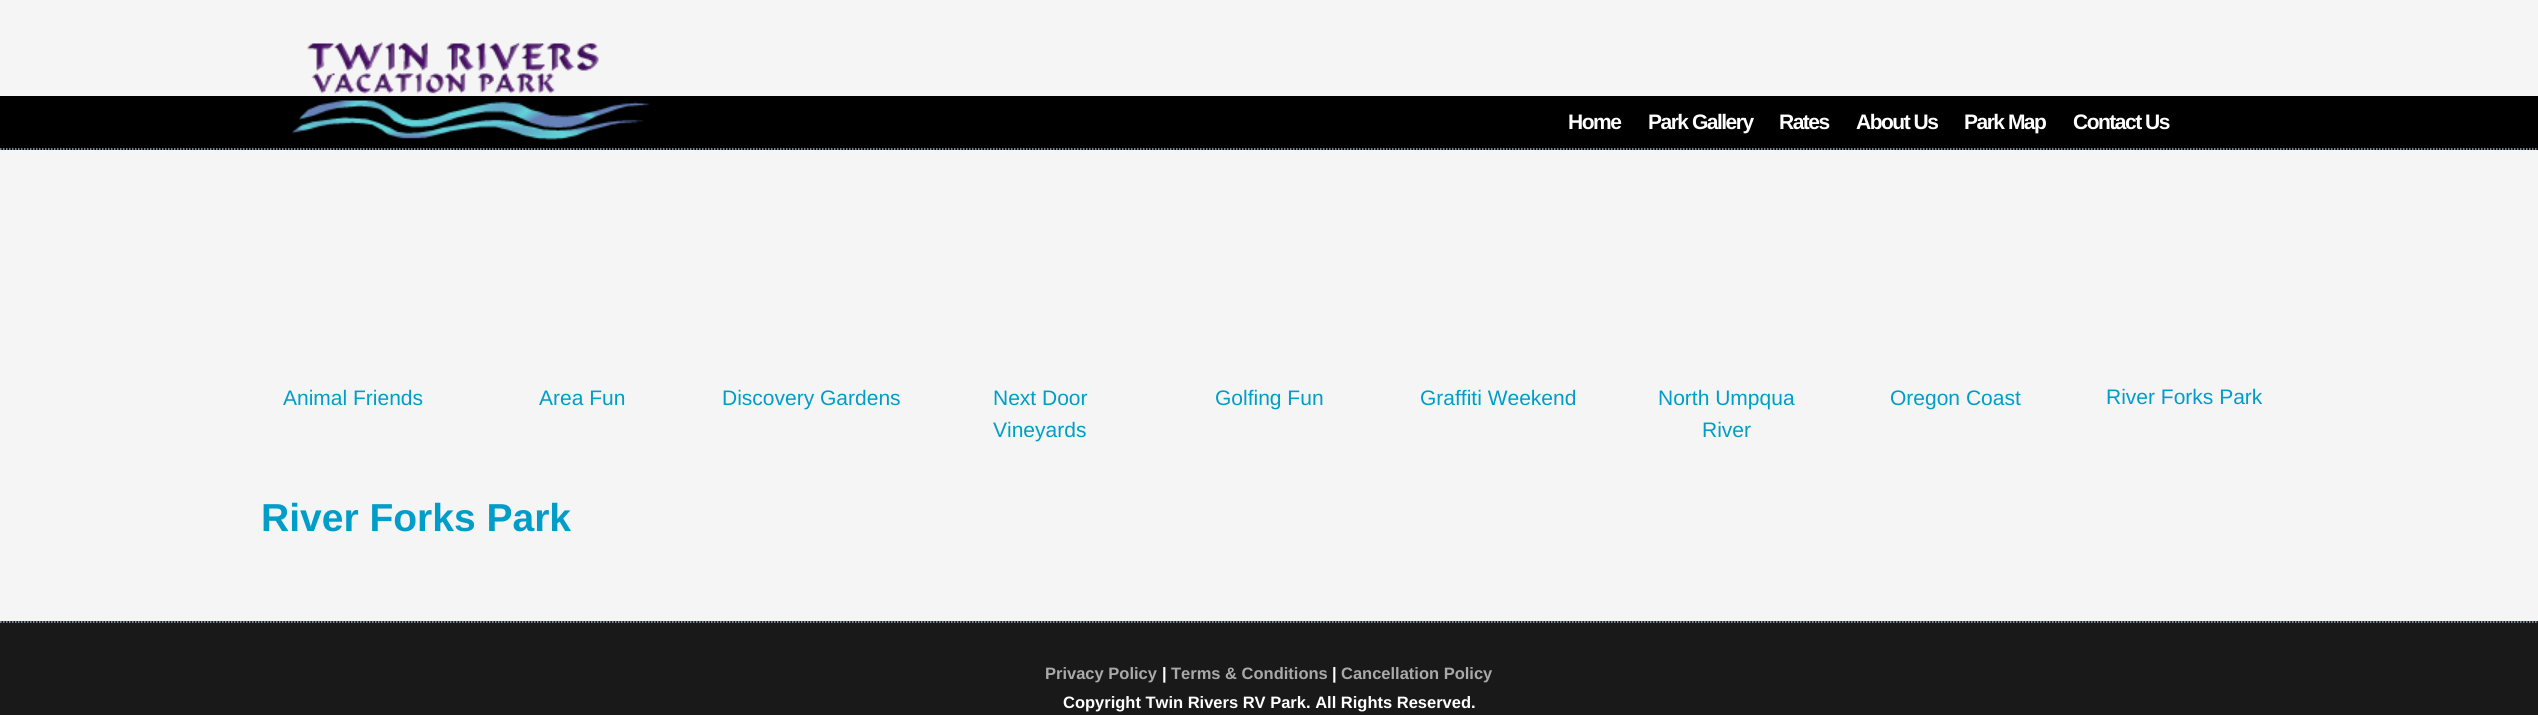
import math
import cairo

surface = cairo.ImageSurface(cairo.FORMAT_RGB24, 2538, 715)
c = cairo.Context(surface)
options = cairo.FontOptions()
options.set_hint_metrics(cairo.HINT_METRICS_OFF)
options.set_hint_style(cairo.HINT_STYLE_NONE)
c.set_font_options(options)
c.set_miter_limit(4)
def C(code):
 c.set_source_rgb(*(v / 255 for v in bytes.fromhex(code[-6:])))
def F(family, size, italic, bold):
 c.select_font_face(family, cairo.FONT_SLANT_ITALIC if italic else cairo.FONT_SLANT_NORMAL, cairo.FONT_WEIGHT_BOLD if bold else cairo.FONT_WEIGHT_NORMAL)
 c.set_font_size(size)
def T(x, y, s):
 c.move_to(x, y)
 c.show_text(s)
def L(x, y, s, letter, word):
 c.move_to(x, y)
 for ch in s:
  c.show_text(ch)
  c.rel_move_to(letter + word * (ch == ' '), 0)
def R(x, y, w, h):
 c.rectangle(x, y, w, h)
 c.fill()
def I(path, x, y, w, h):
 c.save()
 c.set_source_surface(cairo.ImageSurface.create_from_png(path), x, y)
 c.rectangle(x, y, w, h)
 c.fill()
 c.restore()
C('f5f5f5')
c.paint()
C('000000')
R(0,96,2538,54)
I('1.png',292,41,358,99)
c.new_path()
c.move_to(0,149)
c.line_to(2538,149)
C('a3b4c8')
c.set_line_width(1.5)
c.set_dash([1.5,1.5])
c.stroke()
F('Liberation Sans',21,0,1)
C('ffffff')
L(1568,129,'Home',-1.5,0)
L(1648,129,'Park Gallery',-1.5,0)
L(1779,129,'Rates',-1.5,0)
L(1856,129,'About Us',-1.5,0)
L(1964,129,'Park Map',-1.5,0)
L(2073,129,'Contact Us',-1.5,0)
F('Liberation Sans',21,0,0)
C('009dc8')
T(283,405,'Animal Friends')
T(539,405,'Area Fun')
T(722,405,'Discovery Gardens')
T(993,405,'Next Door')
T(993,437,'Vineyards')
T(1215,405,'Golfing Fun')
T(1420,405,'Graffiti Weekend')
T(1658,405,'North Umpqua')
T(1702,437,'River')
T(1890,405,'Oregon Coast')
T(2106,404,'River Forks Park')
F('Liberation Sans',39,0,1)
T(261,531,'River Forks Park')
C('191919')
R(0,621,2538,94)
c.new_path()
c.move_to(0,622)
c.line_to(2538,622)
C('9cafc4')
c.stroke()
F('Liberation Sans',16.5,0,1)
C('a9a9a9')
T(1045,679,'Privacy Policy')
C('ffffff')
T(1162,679,'|')
C('a9a9a9')
T(1171,679,'Terms & Conditions')
C('ffffff')
T(1332,679,'|')
C('a9a9a9')
T(1341,679,'Cancellation Policy')
C('ffffff')
T(1063,708,'Copyright Twin Rivers RV Park. All Rights Reserved.')
surface.write_to_png('o.png')
